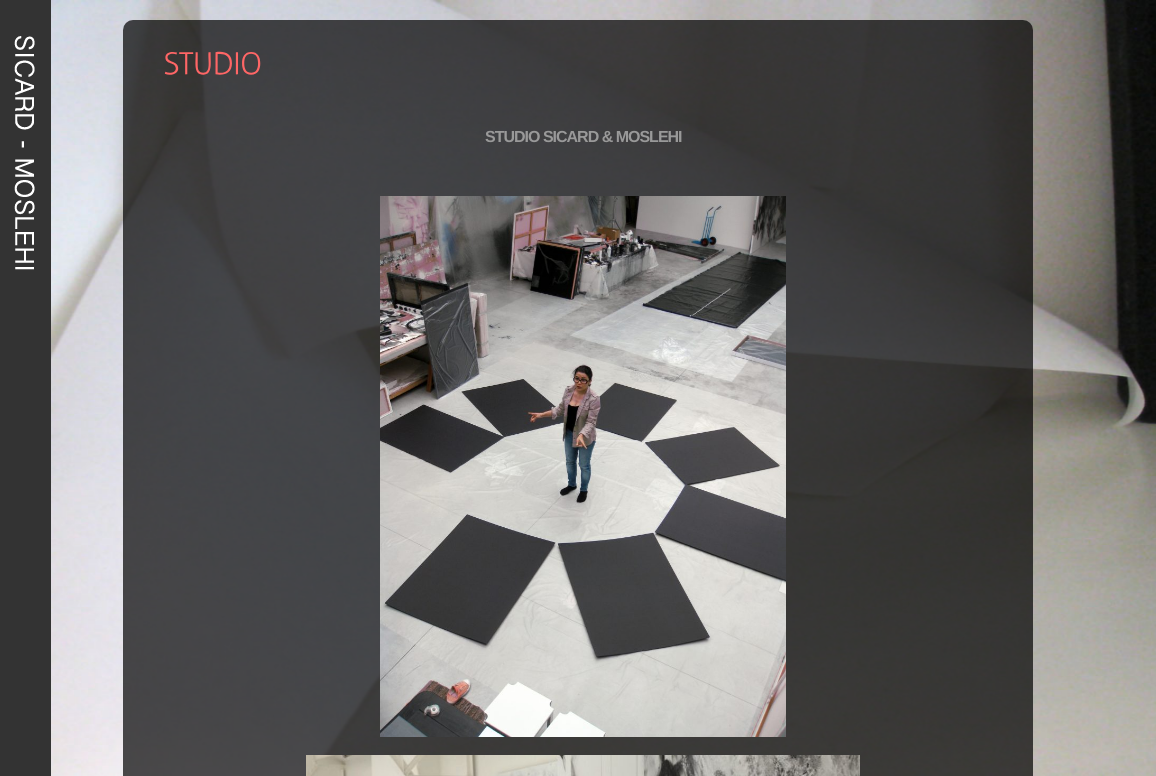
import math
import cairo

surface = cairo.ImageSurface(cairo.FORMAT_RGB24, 1156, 776)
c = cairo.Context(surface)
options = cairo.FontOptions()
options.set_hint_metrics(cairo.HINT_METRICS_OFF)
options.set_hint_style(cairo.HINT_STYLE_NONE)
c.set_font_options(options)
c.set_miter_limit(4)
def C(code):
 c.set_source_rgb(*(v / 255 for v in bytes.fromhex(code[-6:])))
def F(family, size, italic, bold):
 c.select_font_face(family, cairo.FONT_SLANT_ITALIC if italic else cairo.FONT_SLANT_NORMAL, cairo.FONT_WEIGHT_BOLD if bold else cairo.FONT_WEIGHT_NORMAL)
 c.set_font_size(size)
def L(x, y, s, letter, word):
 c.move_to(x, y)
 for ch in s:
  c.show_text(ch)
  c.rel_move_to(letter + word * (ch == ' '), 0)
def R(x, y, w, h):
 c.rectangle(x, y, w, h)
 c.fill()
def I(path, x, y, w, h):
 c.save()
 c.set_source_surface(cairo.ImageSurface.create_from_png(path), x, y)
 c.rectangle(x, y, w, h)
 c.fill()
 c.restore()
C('ffffff')
c.paint()
C('333333')
R(0,0,51,776)
I('1.png',14,36,21,234)
I('2.png',51,0,1105,776)
I('3.png',123,20,910,756)
I('4.png',164,51,97,24)
F('Liberation Sans',16,0,1)
C('999999')
L(485,142,'STUDIO SICARD & MOSLEHI',-1,0)
I('5.png',380,196,406,541)
I('6.png',306,755,554,21)
surface.write_to_png('o.png')
